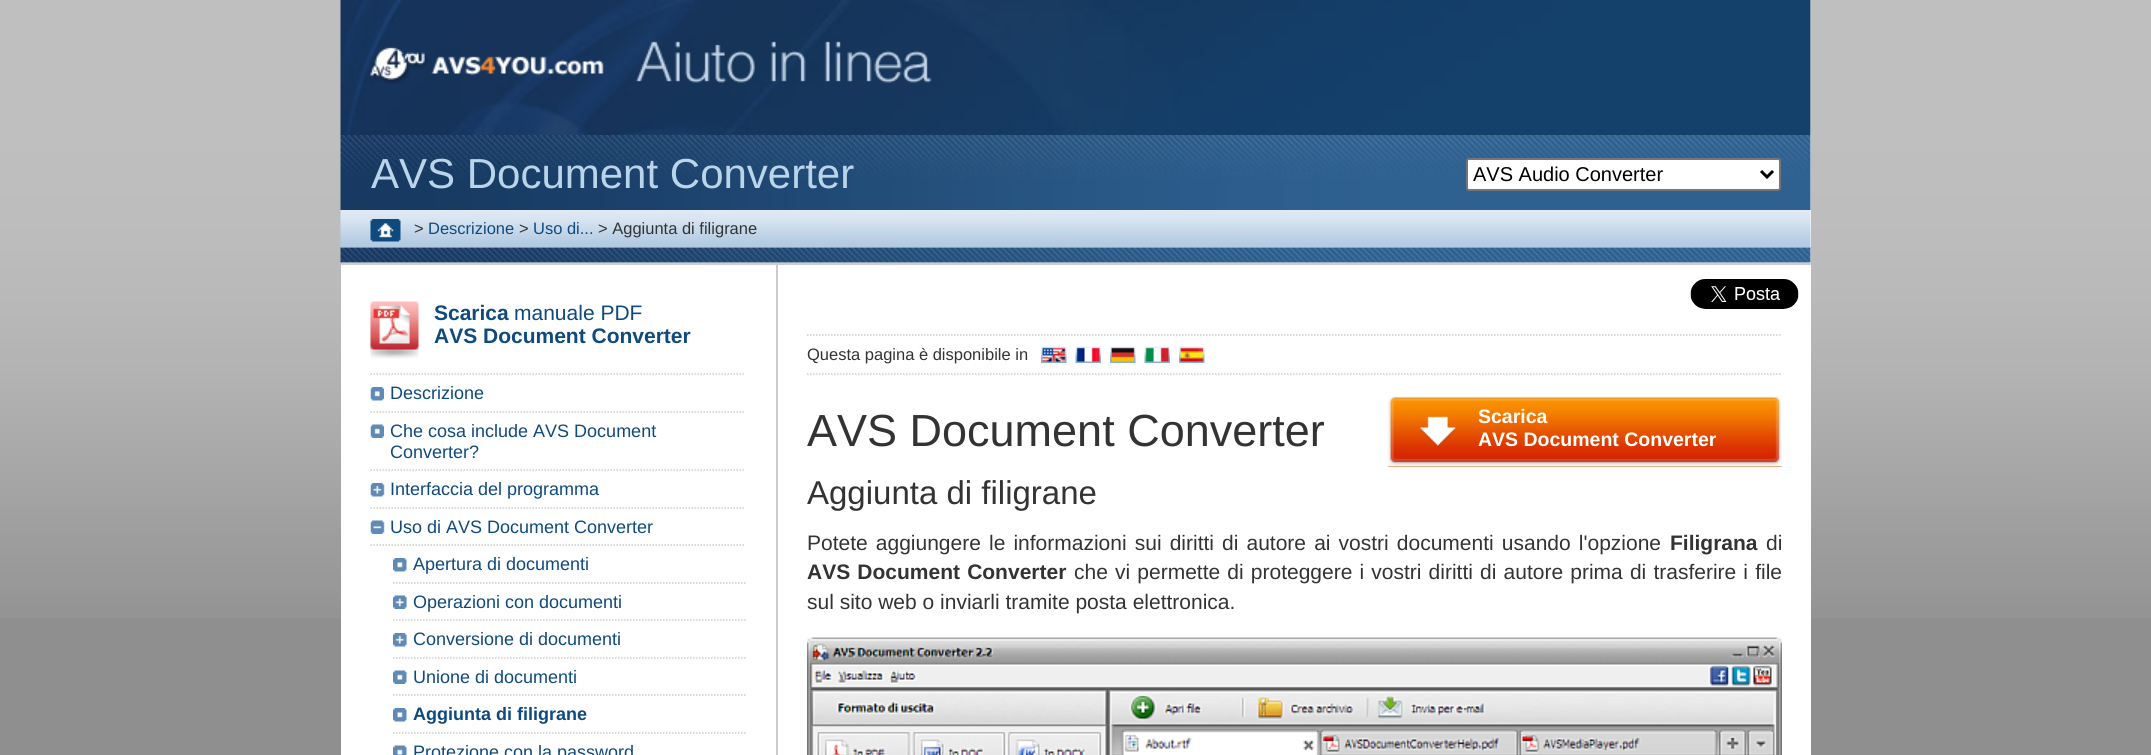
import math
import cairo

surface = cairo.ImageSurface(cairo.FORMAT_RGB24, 2151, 755)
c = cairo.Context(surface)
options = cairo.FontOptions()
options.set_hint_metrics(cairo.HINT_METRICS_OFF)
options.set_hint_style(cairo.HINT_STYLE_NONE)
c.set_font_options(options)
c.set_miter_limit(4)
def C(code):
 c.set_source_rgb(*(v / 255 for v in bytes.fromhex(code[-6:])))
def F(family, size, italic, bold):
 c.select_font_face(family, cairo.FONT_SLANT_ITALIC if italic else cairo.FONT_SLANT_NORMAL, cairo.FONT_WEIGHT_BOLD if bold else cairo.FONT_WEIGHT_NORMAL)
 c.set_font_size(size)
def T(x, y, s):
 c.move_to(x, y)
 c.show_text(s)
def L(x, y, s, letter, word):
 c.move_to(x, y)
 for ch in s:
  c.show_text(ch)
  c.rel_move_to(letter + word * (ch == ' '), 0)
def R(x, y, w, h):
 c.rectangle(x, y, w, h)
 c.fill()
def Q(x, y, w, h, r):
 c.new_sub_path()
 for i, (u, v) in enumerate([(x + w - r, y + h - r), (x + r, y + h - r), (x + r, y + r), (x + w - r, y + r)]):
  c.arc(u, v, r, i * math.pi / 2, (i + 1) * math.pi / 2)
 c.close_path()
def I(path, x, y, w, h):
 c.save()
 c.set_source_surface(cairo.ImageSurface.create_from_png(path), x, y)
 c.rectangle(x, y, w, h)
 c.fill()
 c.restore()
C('8f8f8f')
c.paint()
I('1.png',0,0,2151,618)
C('ffffff')
R(341,0,1470,755)
I('2.png',340,0,1471,135)
I('3.png',370,47,234,37)
I('4.png',635,41,297,42)
I('5.png',340,135,1471,75)
F('Liberation Sans',42,0,0)
C('bad5ea')
T(371,188,'AVS Document Converter')
C('ffffff')
Q(1467,159,313,31,2)
c.fill_preserve()
C('767676')
c.stroke()
c.new_path()
c.move_to(1761,171)
c.line_to(1767,177)
c.line_to(1773,171)
C('000000')
c.set_line_width(3)
c.stroke()
F('Liberation Sans',20,0,0)
T(1473,181,'AVS Audio Converter')
I('6.png',340,210,1471,38)
I('7.png',370,219,31,23)
F('Liberation Sans',16.5,0,0)
C('333333')
T(414,234,'>')
C('0f4a7e')
T(428,234,'Descrizione')
C('333333')
T(519,234,'>')
C('0f4a7e')
T(533,234,'Uso di...')
C('333333')
T(598,234,'> Aggiunta di filigrane')
I('8.png',340,247,1471,16)
C('cccccc')
R(341,263,1470,2)
R(776,263,2,492)
I('9.png',370,301,49,58)
F('Liberation Sans',21,0,1)
C('0f4a7e')
T(434,320,'Scarica')
F('Liberation Sans',21,0,0)
T(514,320,'manuale PDF')
F('Liberation Sans',21,0,1)
T(434,343,'AVS Document Converter')
c.new_path()
c.move_to(370.5,374)
c.line_to(745.5,374)
C('cccccc')
c.set_line_width(1.5)
c.set_dash([1.5,1.5])
c.stroke()
c.new_path()
c.move_to(370.5,412)
c.line_to(745.5,412)
c.stroke()
I('10.png',370,387,14,14)
F('Liberation Sans',18,0,0)
C('0f4a7e')
T(390,399,'Descrizione')
c.new_path()
c.move_to(370.5,470)
c.line_to(745.5,470)
C('cccccc')
c.stroke()
I('11.png',370,424,14,14)
C('0f4a7e')
T(390,437,'Che cosa include AVS Document')
T(390,458,'Converter?')
c.new_path()
c.move_to(370.5,508)
c.line_to(745.5,508)
C('cccccc')
c.stroke()
I('12.png',370,483,15,14)
C('0f4a7e')
T(390,495,'Interfaccia del programma')
c.new_path()
c.move_to(370.5,545)
c.line_to(745.5,545)
C('cccccc')
c.stroke()
I('13.png',370,520,15,14)
C('0f4a7e')
T(390,533,'Uso di AVS Document Converter')
c.new_path()
c.move_to(393,583)
c.line_to(745.5,583)
C('cccccc')
c.stroke()
I('14.png',393,558,14,14)
C('0f4a7e')
T(413,570,'Apertura di documenti')
c.new_path()
c.move_to(393,620)
c.line_to(745.5,620)
C('cccccc')
c.stroke()
I('15.png',393,595,14,14)
C('0f4a7e')
T(413,608,'Operazioni con documenti')
c.new_path()
c.move_to(393,658)
c.line_to(745.5,658)
C('cccccc')
c.stroke()
I('16.png',393,633,14,14)
C('0f4a7e')
T(413,645,'Conversione di documenti')
c.new_path()
c.move_to(393,695)
c.line_to(745.5,695)
C('cccccc')
c.stroke()
I('17.png',393,670,14,14)
C('0f4a7e')
T(413,683,'Unione di documenti')
c.new_path()
c.move_to(393,733)
c.line_to(745.5,733)
C('cccccc')
c.stroke()
I('14.png',393,708,14,14)
F('Liberation Sans',18,0,1)
C('0f4a7e')
T(413,720,'Aggiunta di filigrane')
I('18.png',393,745,14,10)
F('Liberation Sans',18,0,0)
T(413,758,'Protezione con la password')
c.new_path()
c.move_to(807,335)
c.line_to(1782,335)
C('cccccc')
c.stroke()
I('19.png',1690,279,109,30)
F('Liberation Sans',16.5,0,0)
C('333333')
T(807,360,'Questa pagina è disponibile in')
I('20.png',1041,346,26,17)
I('21.png',1075,346,26,17)
I('22.png',1110,346,26,17)
I('23.png',1144,346,26,17)
I('24.png',1179,346,26,17)
c.new_path()
c.move_to(807,374)
c.line_to(1782,374)
C('cccccc')
c.stroke()
F('Liberation Sans',45,0,0)
C('333333')
T(807,446,'AVS Document Converter')
C('e95b00')
R(1388,466,394,1)
I('25.png',1387,396,395,71)
F('Liberation Sans',19.5,0,1)
C('ffffff')
T(1478,423,'Scarica')
T(1478,446,'AVS Document Converter')
F('Liberation Sans',33,0,0)
C('333333')
T(807,504,'Aggiunta di filigrane')
F('Liberation Sans',21,0,0)
L(807,550,'Potete aggiungere le informazioni sui diritti di autore ai vostri documenti usando l\'opzione',0,2.25)
F('Liberation Sans',21,0,1)
T(1670,550,'Filigrana')
F('Liberation Sans',21,0,0)
T(1766,550,'di')
F('Liberation Sans',21,0,1)
L(807,579,'AVS Document Converter',0,1.3)
F('Liberation Sans',21,0,0)
L(1074,579,'che vi permette di proteggere i vostri diritti di autore prima di trasferire i file',0,1.3)
T(807,609,'sul sito web o inviarli tramite posta elettronica.')
I('26.png',807,637,975,118)
surface.write_to_png('o.png')
